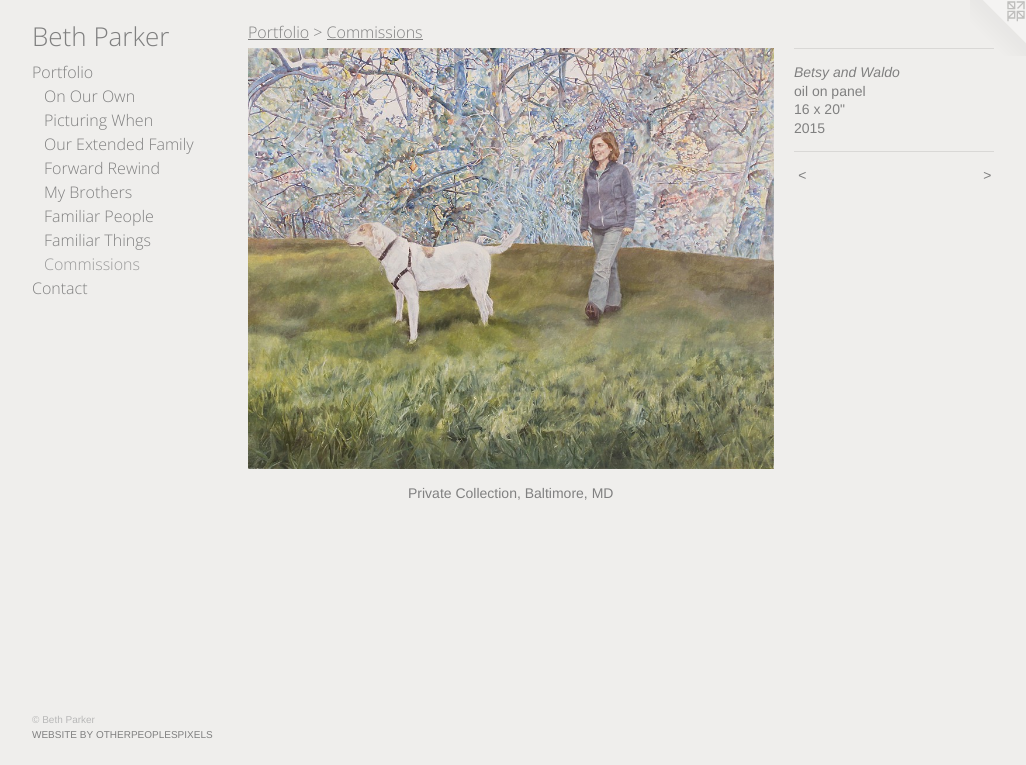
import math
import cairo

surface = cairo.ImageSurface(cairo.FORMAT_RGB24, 1026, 765)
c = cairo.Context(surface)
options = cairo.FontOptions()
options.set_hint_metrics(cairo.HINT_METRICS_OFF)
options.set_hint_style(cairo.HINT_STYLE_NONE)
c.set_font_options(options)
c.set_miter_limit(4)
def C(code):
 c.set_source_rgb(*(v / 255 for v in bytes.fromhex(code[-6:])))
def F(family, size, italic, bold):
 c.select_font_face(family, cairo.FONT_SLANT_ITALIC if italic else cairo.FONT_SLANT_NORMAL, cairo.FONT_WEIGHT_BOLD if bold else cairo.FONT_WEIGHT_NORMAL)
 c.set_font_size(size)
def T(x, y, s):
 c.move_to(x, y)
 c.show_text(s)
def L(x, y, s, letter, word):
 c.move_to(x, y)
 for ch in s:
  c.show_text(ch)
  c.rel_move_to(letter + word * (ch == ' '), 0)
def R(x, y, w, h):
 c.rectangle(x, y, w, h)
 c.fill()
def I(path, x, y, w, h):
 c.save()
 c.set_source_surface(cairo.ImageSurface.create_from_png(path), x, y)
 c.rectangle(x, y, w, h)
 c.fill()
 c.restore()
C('efeeec')
c.paint()
F('Open Sans Light',26,0,0)
C('808080')
T(32,46,'Beth Parker')
F('Open Sans Light',16,0,0)
T(32,78,'Portfolio')
T(44,102,'On Our Own')
T(44,126,'Picturing When')
T(44,150,'Our Extended Family')
T(44,174,'Forward Rewind')
T(44,198,'My Brothers')
T(44,222,'Familiar People')
T(44,246,'Familiar Things')
C('9a9a9a')
T(44,270,'Commissions')
C('808080')
T(32,294,'Contact')
F('Liberation Sans',10,0,0)
C('b8b8b8')
T(32,723,'© Beth Parker')
C('808080')
T(32,738,'WEBSITE BY OTHERPEOPLESPIXELS')
F('Open Sans Light',16,0,0)
T(248,38,'Portfolio > Commissions')
R(248,39,61,1)
R(327,39,96,1)
I('1.png',248,48,526,421)
I('2.png',970,0,56,56)
C('d9d8d6')
R(794,48,200,1)
F('Liberation Sans',14,1,0)
C('808080')
T(794,77,'Betsy and Waldo')
F('Liberation Sans',14,0,0)
T(794,96,'oil on panel')
T(794,114,'16 x 20"')
T(794,133,'2015')
C('d9d8d6')
R(794,151,200,1)
F('Liberation Sans',14,1,0)
C('808080')
L(798,180,'<',1,0)
L(983,180,'>',1,0)
F('Liberation Sans',14,0,0)
T(408,498,'Private Collection, Baltimore, MD')
surface.write_to_png('o.png')
